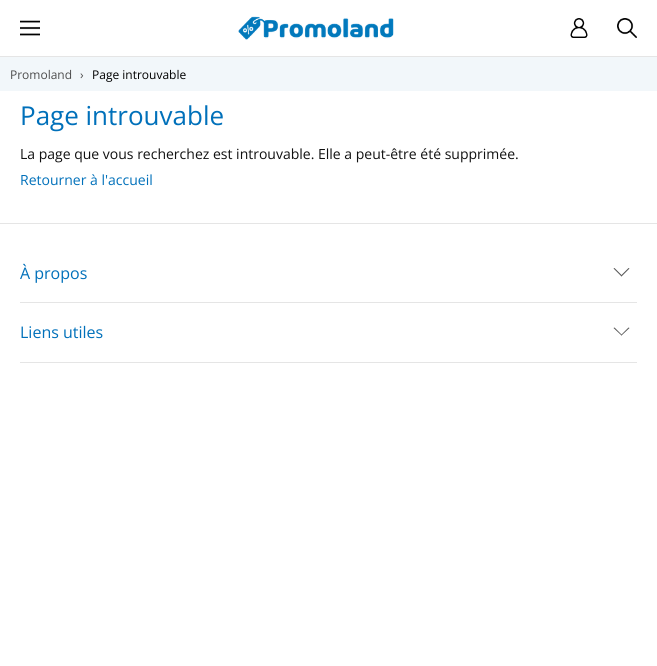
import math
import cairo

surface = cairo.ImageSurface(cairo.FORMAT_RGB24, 657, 666)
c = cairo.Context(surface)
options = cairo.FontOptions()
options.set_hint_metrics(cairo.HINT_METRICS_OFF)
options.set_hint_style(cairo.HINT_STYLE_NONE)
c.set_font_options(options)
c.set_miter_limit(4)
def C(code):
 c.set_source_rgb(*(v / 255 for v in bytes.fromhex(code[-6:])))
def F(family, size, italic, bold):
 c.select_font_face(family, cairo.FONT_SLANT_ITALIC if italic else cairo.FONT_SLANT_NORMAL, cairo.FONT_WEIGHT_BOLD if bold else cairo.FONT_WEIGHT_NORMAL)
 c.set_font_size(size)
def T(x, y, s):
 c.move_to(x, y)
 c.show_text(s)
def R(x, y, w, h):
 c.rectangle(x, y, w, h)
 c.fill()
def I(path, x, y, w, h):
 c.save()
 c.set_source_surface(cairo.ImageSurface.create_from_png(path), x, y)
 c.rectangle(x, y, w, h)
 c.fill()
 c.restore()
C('ffffff')
c.paint()
C('e5e5e5')
R(0,56,657,1)
I('1.png',20,20,20,16)
I('2.png',238,16,156,24)
I('3.png',570,18,18,20)
I('4.png',617,18,20,20)
C('f2f7fa')
R(0,57,657,34)
F('Open Sans',12,0,0)
C('4d4d4d')
T(10,79,'Promoland')
T(80,79,'›')
C('000000')
T(92,79,'Page introuvable')
F('Open Sans',26,0,0)
C('0070ba')
T(20,125,'Page introuvable')
F('Open Sans',14,0,0)
C('111111')
T(20,159,'La page que vous recherchez est introuvable. Elle a peut-être été supprimée.')
C('0070ba')
T(20,185,'Retourner à l\'accueil')
C('e5e5e5')
R(0,223,657,1)
R(20,302,617,1)
F('Open Sans',16,0,0)
C('0070ba')
T(20,279,'À propos')
C('555555')
c.new_path()
c.move_to(628.5,268)
c.line_to(629.5,268.5)
c.line_to(621.5,276.5)
c.line_to(621,275.5)
c.close_path()
c.fill()
c.new_path()
c.move_to(614.5,268)
c.line_to(622,275.5)
c.line_to(621.5,276.5)
c.line_to(613.5,268.5)
c.close_path()
c.fill()
C('e5e5e5')
R(20,362,617,1)
C('0070ba')
T(20,338,'Liens utiles')
C('555555')
c.new_path()
c.move_to(628.5,327.5)
c.line_to(629.5,328)
c.line_to(621.5,335.5)
c.line_to(621,335)
c.close_path()
c.fill()
c.new_path()
c.move_to(614.5,327.5)
c.line_to(622,335)
c.line_to(621.5,335.5)
c.line_to(613.5,328)
c.close_path()
c.fill()
surface.write_to_png('o.png')
